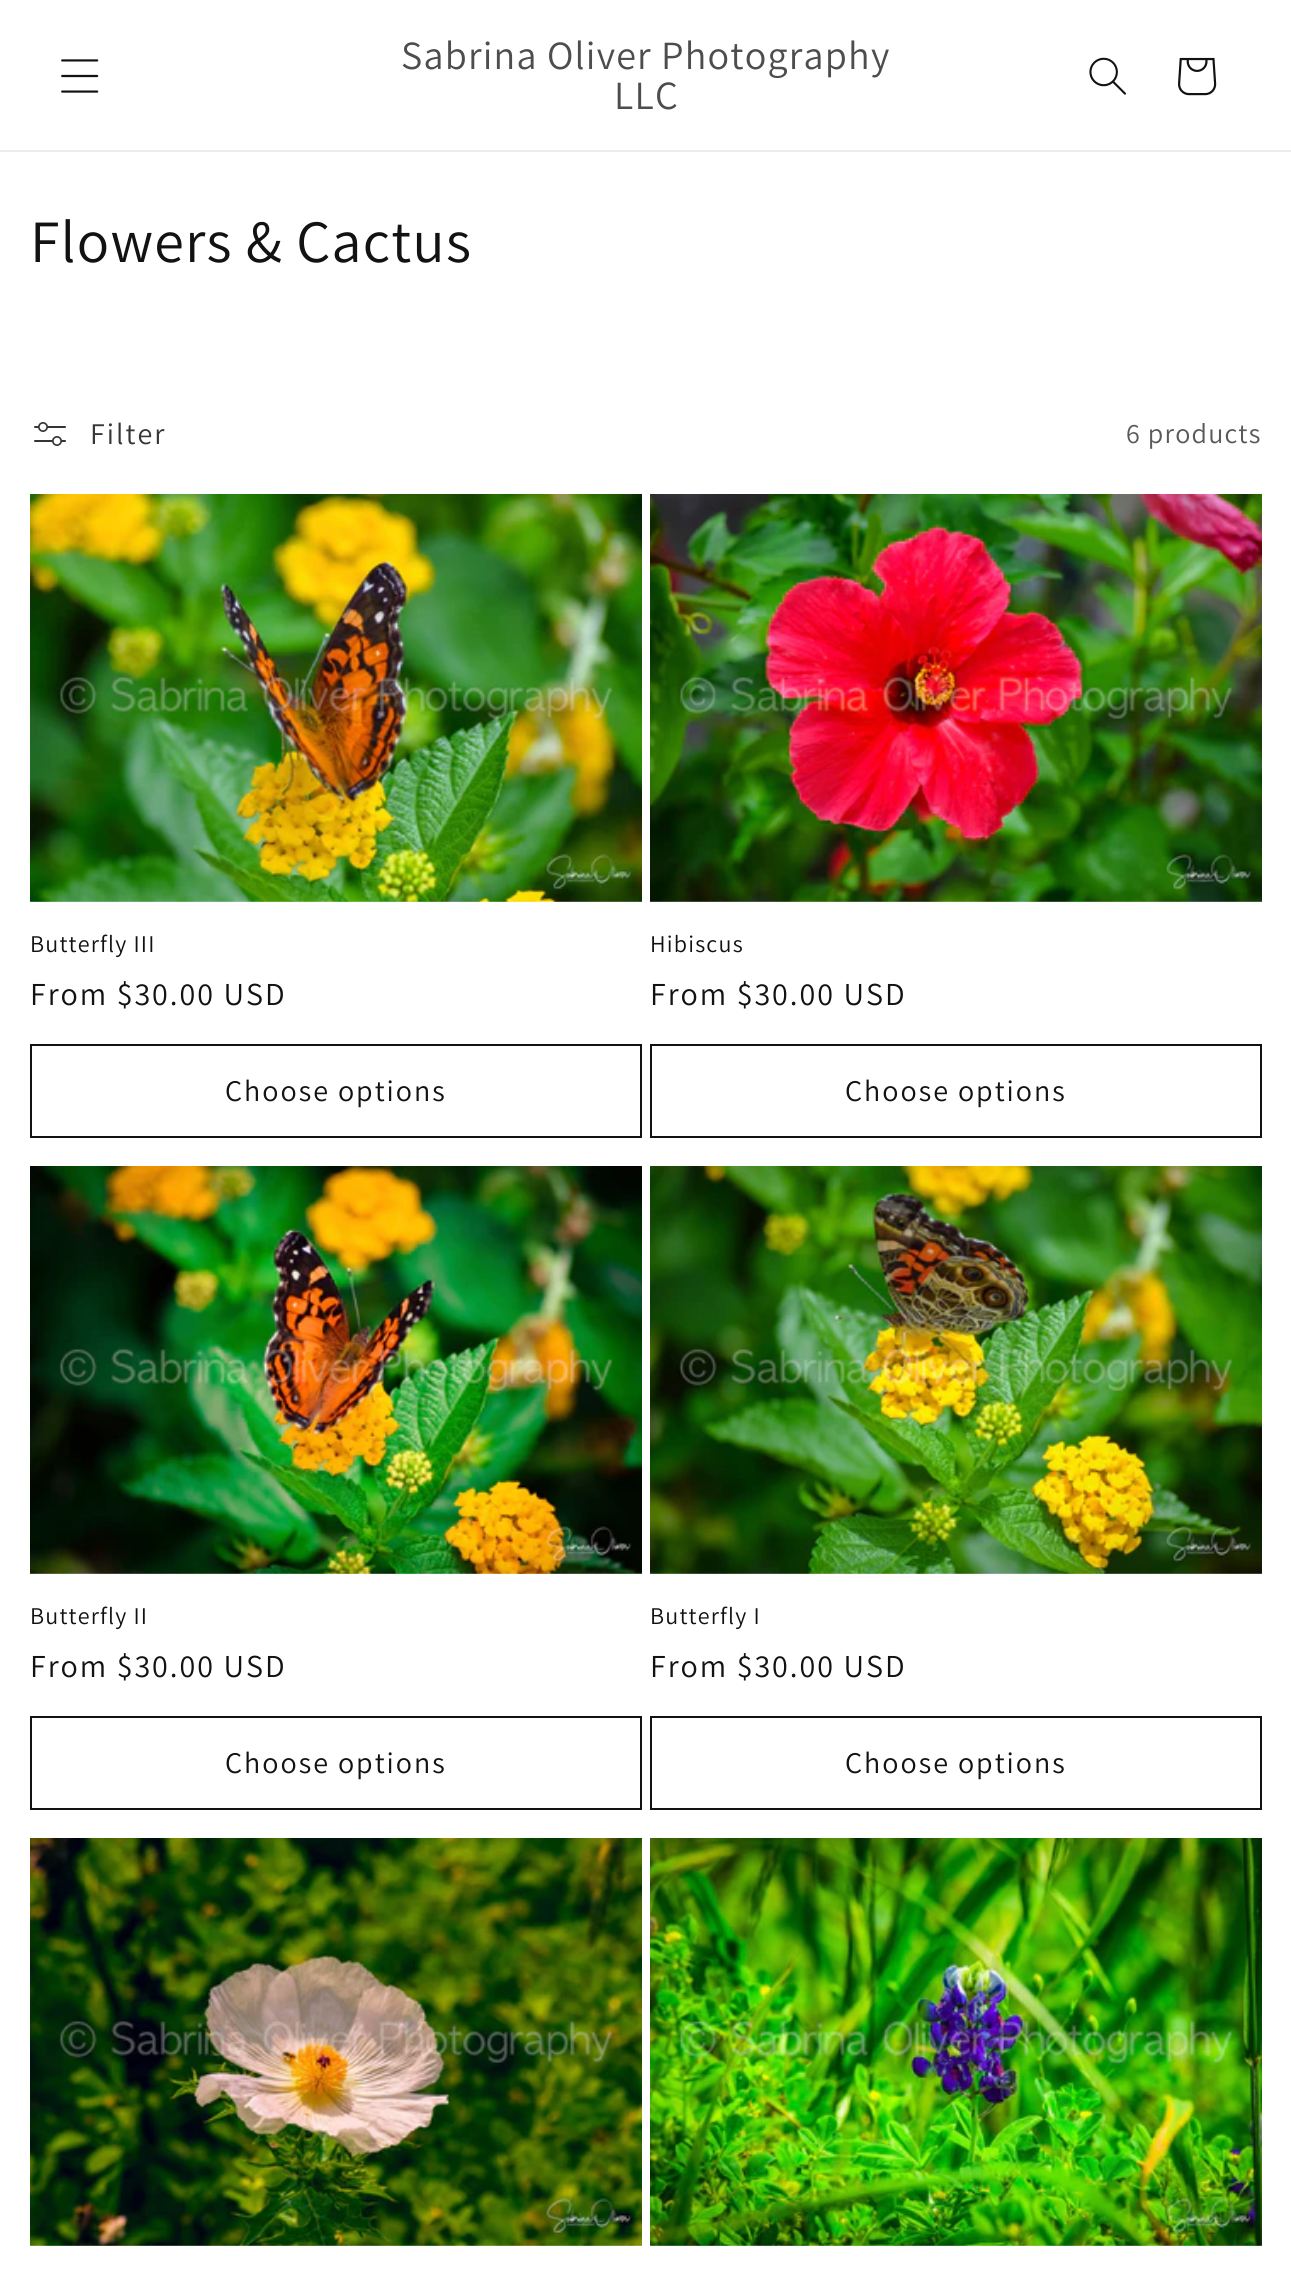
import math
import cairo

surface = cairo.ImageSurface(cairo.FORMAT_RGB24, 1291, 2285)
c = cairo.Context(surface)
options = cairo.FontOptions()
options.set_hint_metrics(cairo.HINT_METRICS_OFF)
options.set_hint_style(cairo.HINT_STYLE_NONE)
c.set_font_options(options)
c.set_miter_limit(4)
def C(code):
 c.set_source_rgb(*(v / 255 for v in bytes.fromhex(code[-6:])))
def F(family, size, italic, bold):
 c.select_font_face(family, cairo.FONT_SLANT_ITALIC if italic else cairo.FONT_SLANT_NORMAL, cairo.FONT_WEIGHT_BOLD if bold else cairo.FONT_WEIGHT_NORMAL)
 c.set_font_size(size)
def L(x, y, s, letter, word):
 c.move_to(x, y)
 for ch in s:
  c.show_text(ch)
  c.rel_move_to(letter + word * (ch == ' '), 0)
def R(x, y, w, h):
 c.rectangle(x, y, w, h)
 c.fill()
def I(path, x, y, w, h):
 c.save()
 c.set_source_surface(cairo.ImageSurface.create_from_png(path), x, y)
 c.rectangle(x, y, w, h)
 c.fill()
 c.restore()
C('ffffff')
c.paint()
C('ececec')
R(0,150,1291,2)
I('1.png',61,59,38,34)
F('Assistant',40,0,0)
C('4d4d4d')
L(401,69,'Sabrina Oliver Photography',1.2,0)
L(614,109,'LLC',1.2,0)
I('2.png',1089,57,37,38)
I('3.png',1178,57,39,39)
F('Assistant',60,0,0)
C('121212')
L(30,262,'Flowers & Cactus',1.2,0)
I('4.png',34,422,32,24)
F('Assistant',30,0,0)
C('363636')
L(90,444,'Filter',2,0)
F('Assistant',28,0,0)
C('595959')
L(1126,443,'6 products',1.2,0)
I('5.png',30,494,612,408)
F('Assistant',24,0,0)
C('121212')
L(30,952,'Butterfly III',1.2,0)
F('Assistant',32,0,0)
L(30,1005,'From $30.00 USD',2,0)
c.rectangle(31,1045,610,92)
c.stroke()
F('Assistant',30,0,0)
L(225,1101,'Choose options',2,0)
I('6.png',650,494,612,408)
F('Assistant',24,0,0)
L(650,952,'Hibiscus',1.2,0)
F('Assistant',32,0,0)
L(650,1005,'From $30.00 USD',2,0)
c.rectangle(651,1045,610,92)
c.stroke()
F('Assistant',30,0,0)
L(845,1101,'Choose options',2,0)
I('7.png',30,1166,612,408)
F('Assistant',24,0,0)
L(30,1624,'Butterfly II',1.2,0)
F('Assistant',32,0,0)
L(30,1677,'From $30.00 USD',2,0)
c.rectangle(31,1717,610,92)
c.stroke()
F('Assistant',30,0,0)
L(225,1773,'Choose options',2,0)
I('8.png',650,1166,612,408)
F('Assistant',24,0,0)
L(650,1624,'Butterfly I',1.2,0)
F('Assistant',32,0,0)
L(650,1677,'From $30.00 USD',2,0)
c.rectangle(651,1717,610,92)
c.stroke()
F('Assistant',30,0,0)
L(845,1773,'Choose options',2,0)
I('9.png',30,1838,612,408)
I('10.png',650,1838,612,408)
surface.write_to_png('o.png')
